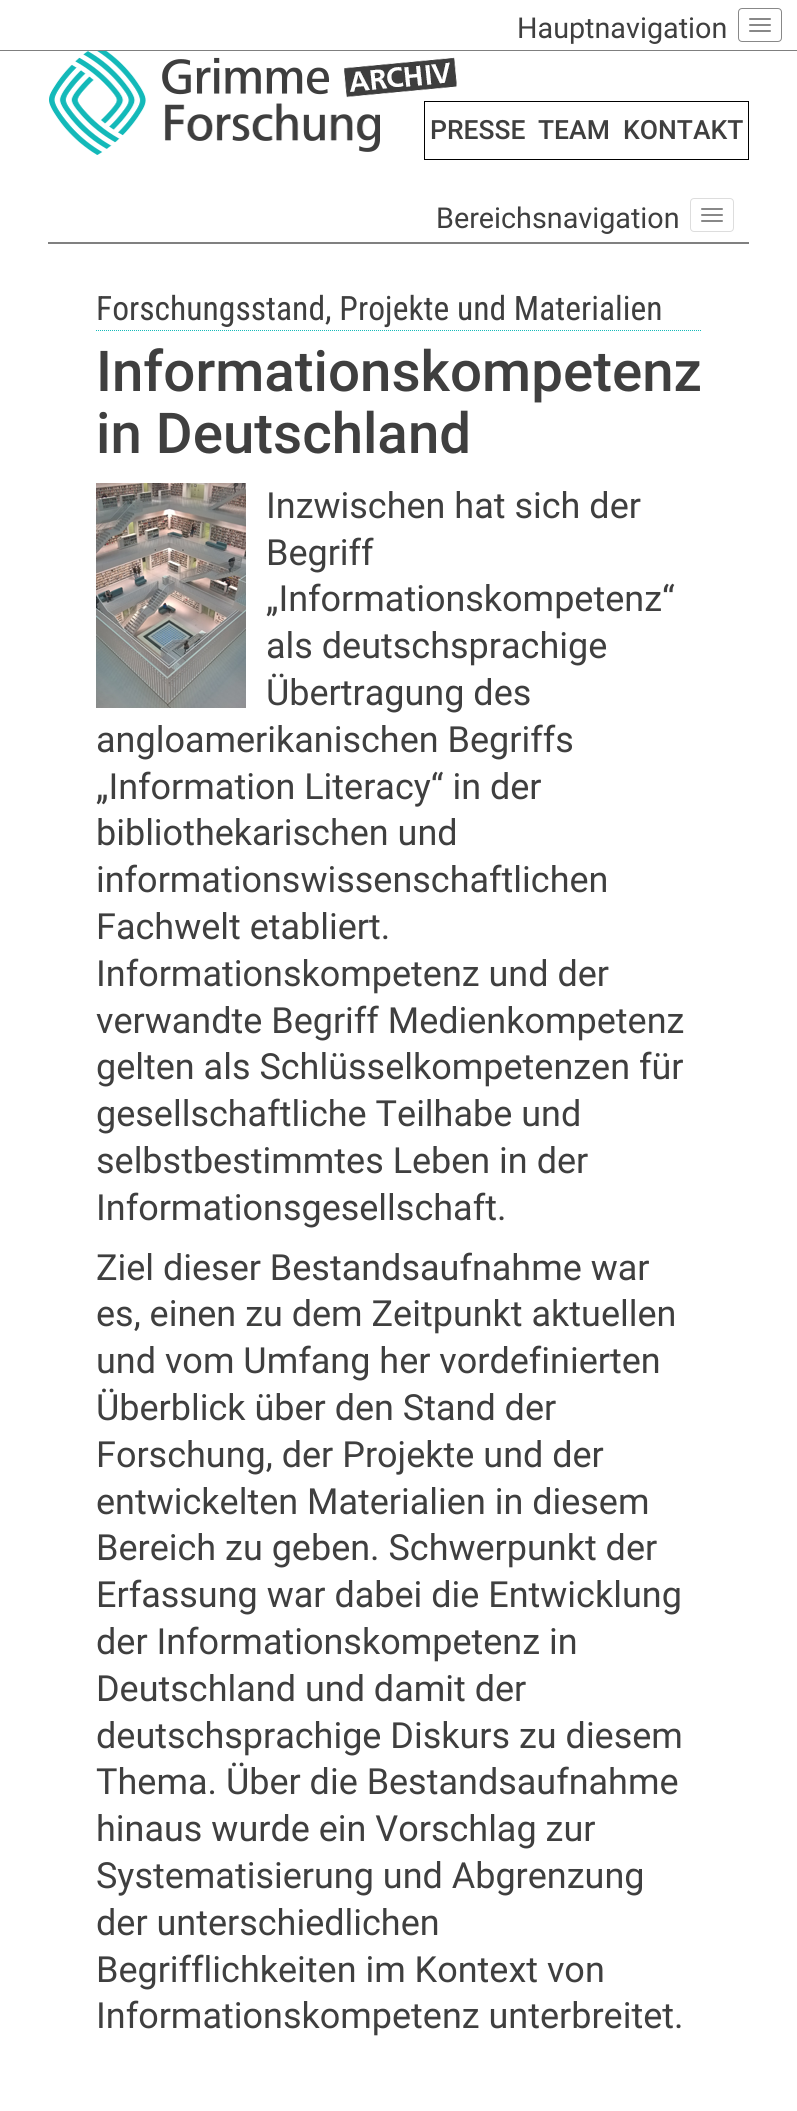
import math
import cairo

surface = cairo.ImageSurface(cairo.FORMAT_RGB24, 797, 2111)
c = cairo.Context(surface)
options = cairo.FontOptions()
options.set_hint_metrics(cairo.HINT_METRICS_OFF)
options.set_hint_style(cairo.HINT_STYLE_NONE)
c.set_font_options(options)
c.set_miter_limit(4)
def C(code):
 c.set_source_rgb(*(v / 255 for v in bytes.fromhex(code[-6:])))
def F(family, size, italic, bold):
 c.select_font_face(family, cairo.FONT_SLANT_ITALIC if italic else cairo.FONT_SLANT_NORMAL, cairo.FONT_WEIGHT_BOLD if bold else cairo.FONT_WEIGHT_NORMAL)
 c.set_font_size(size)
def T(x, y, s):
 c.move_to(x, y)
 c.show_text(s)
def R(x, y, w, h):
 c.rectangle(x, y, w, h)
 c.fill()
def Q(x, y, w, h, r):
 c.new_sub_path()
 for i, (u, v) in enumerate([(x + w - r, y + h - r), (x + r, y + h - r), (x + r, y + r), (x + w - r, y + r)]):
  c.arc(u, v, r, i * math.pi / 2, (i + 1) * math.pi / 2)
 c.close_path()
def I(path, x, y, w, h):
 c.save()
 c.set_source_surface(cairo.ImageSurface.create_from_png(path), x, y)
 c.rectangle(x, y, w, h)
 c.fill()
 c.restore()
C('ffffff')
c.paint()
C('7f7f7f')
R(0,50,797,1)
F('Roboto',28.75,0,0)
C('3f3f3f')
T(517,38,'Hauptnavigation')
Q(738.5,8.5,43,33,3.5)
C('888888')
c.set_line_width(1)
c.stroke()
Q(749,18,22,2,1)
c.fill()
Q(749,24,22,2,1)
c.fill()
Q(749,30,22,2,1)
c.fill()
I('1.png',49,51,408,104)
c.rectangle(424.5,101.5,324,58)
C('000000')
c.stroke()
F('Roboto Medium',26.5,0,0)
C('3f3f3f')
T(430,139,'PRESSE')
T(538,139,'TEAM')
T(623,139,'KONTAKT')
F('Roboto',28.75,0,0)
T(436,228,'Bereichsnavigation')
Q(690.5,198.5,43,33,3.5)
C('dddddd')
c.stroke()
C('888888')
Q(701,208,22,2,1)
c.fill()
Q(701,214,22,2,1)
c.fill()
Q(701,220,22,2,1)
c.fill()
C('808080')
R(48,242,701,2)
c.new_path()
c.move_to(96,330.5)
c.line_to(701,330.5)
C('14baba')
c.set_dash([1,1])
c.stroke()
F('Roboto Condensed',33.6,0,0)
C('3f3f3f')
T(96,320,'Forschungsstand, Projekte und Materialien')
F('Roboto Medium',56.4,0,0)
T(96,391,'Informationskompetenz')
T(96,453,'in Deutschland')
I('2.png',96,483,150,225)
F('Roboto',36,0,0)
T(266,518,'Inzwischen hat sich der')
T(266,565,'Begriff')
T(266,611,'„Informationskompetenz“')
T(266,658,'als deutschsprachige')
T(266,705,'Übertragung des')
T(96,752,'angloamerikanischen Begriffs')
T(96,799,'„Information Literacy“ in der')
T(96,845,'bibliothekarischen und')
T(96,892,'informationswissenschaftlichen')
T(96,939,'Fachwelt etabliert.')
T(96,986,'Informationskompetenz und der')
T(96,1033,'verwandte Begriff Medienkompetenz')
T(96,1079,'gelten als Schlüsselkompetenzen für')
T(96,1126,'gesellschaftliche Teilhabe und')
T(96,1173,'selbstbestimmtes Leben in der')
T(96,1220,'Informationsgesellschaft.')
T(96,1280,'Ziel dieser Bestandsaufnahme war')
T(96,1326,'es, einen zu dem Zeitpunkt aktuellen')
T(96,1373,'und vom Umfang her vordefinierten')
T(96,1420,'Überblick über den Stand der')
T(96,1467,'Forschung, der Projekte und der')
T(96,1514,'entwickelten Materialien in diesem')
T(96,1560,'Bereich zu geben. Schwerpunkt der')
T(96,1607,'Erfassung war dabei die Entwicklung')
T(96,1654,'der Informationskompetenz in')
T(96,1701,'Deutschland und damit der')
T(96,1748,'deutschsprachige Diskurs zu diesem')
T(96,1794,'Thema. Über die Bestandsaufnahme')
T(96,1841,'hinaus wurde ein Vorschlag zur')
T(96,1888,'Systematisierung und Abgrenzung')
T(96,1935,'der unterschiedlichen')
T(96,1982,'Begrifflichkeiten im Kontext von')
T(96,2028,'Informationskompetenz unterbreitet.')
surface.write_to_png('o.png')
